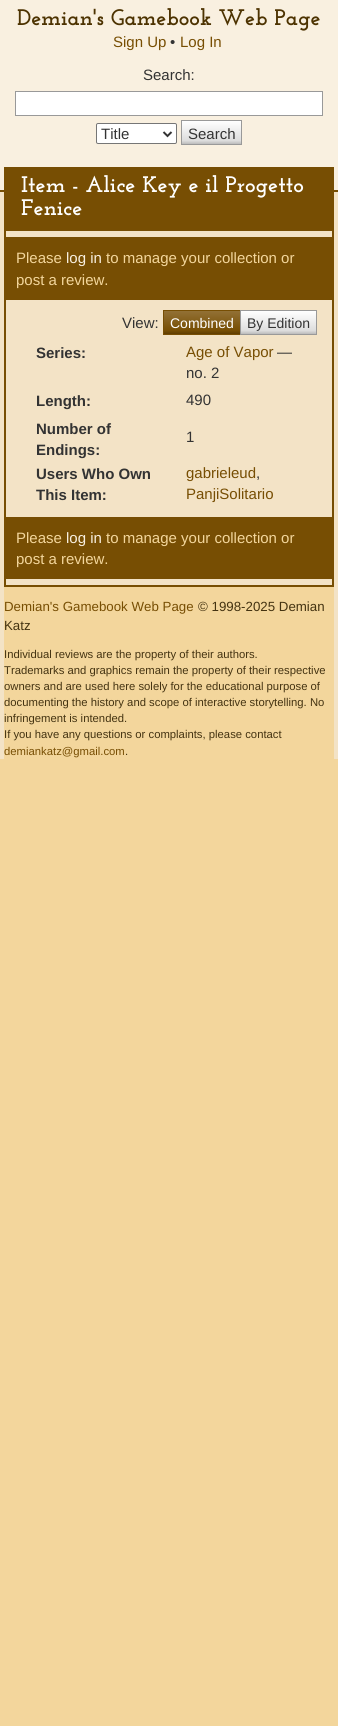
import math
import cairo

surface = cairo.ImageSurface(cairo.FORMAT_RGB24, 338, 1726)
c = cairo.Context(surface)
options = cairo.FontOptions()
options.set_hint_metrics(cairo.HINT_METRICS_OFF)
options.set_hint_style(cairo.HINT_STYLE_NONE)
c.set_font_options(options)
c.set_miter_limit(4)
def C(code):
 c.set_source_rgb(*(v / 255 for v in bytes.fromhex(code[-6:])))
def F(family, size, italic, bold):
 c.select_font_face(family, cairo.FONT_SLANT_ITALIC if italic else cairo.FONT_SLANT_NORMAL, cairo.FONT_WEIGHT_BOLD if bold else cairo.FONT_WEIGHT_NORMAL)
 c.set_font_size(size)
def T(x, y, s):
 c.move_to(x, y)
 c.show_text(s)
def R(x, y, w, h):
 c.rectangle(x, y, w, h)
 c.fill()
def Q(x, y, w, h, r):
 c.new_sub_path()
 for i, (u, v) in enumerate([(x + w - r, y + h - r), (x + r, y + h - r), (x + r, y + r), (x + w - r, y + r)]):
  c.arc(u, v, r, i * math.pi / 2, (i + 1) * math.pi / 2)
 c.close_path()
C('f3d69c')
c.paint()
C('f9f0e0')
R(0,0,338,190)
C('774e03')
R(0,190,338,2)
F('Josefin Slab',22.5,0,1)
C('4d3301')
T(17,25,'Demian\'s Gamebook Web Page')
F('Liberation Sans',15,0,0)
C('774e03')
T(113,47,'Sign Up')
C('333333')
T(170,47,'•')
C('774e03')
T(180,47,'Log In')
C('333333')
T(143,80,'Search:')
C('ffffff')
c.rectangle(15.5,91.5,307,24)
c.fill_preserve()
C('999999')
c.set_line_width(1)
c.stroke()
C('ffffff')
Q(96.5,123.5,80,20,1.5)
c.fill_preserve()
C('767676')
c.stroke()
c.new_path()
c.move_to(163.5,132)
c.line_to(167.5,136)
c.line_to(171.5,132)
C('333333')
c.set_line_width(2)
c.stroke()
T(101,139,'Title')
gradient = cairo.LinearGradient(212,121,212,144)
gradient.add_color_stop_rgba(0,1,1,1,1)
gradient.add_color_stop_rgba(.85,0.867,0.867,0.867,1)
gradient.add_color_stop_rgba(1,0.733,0.733,0.733,1)
c.set_source(gradient)
R(182,121,59,23)
c.rectangle(181.5,120.5,60,24)
C('999999')
c.set_line_width(1)
c.stroke()
C('333333')
T(188,139,'Search')
C('f3e3c6')
R(0,192,338,567)
C('774e03')
R(4,167,330,64)
F('Josefin Slab',22.5,0,1)
C('ffffff')
T(21,192,'Item - Alice Key e il Progetto')
T(21,215,'Fenice')
C('774e03')
R(332,231,2,356)
R(4,585,330,2)
R(4,231,2,356)
R(6,237,326,63)
F('Liberation Sans',15,0,0)
C('f3d69c')
T(16,263,'Please')
C('f9f0e0')
T(66,263,'log in')
C('f3d69c')
T(106,263,'to manage your collection or')
T(16,285,'post a review.')
C('333333')
T(122,328,'View:')
gradient = cairo.LinearGradient(202,311,202,334)
gradient.add_color_stop_rgba(0,0.573,0.443,0.208,1)
gradient.add_color_stop_rgba(.85,0.467,0.306,0.012,1)
gradient.add_color_stop_rgba(1,0.373,0.243,0.008,1)
c.set_source(gradient)
R(164,311,76,23)
c.rectangle(163.5,310.5,77,24)
C('774e03')
c.stroke()
F('Liberation Sans',14,0,0)
C('ffffff')
T(170,328,'Combined')
gradient = cairo.LinearGradient(279,311,279,334)
gradient.add_color_stop_rgba(0,1,1,1,1)
gradient.add_color_stop_rgba(.85,0.867,0.867,0.867,1)
gradient.add_color_stop_rgba(1,0.733,0.733,0.733,1)
c.set_source(gradient)
R(241,311,75,23)
c.rectangle(240.5,310.5,76,24)
C('999999')
c.stroke()
C('333333')
T(247,328,'By Edition')
F('Liberation Sans',15,0,1)
T(36,358,'Series:')
F('Liberation Sans',15,0,0)
C('774e03')
T(186,357,'Age of Vapor')
C('333333')
T(277,357,'—')
T(186,378,'no. 2')
F('Liberation Sans',15,0,1)
T(36,406,'Length:')
F('Liberation Sans',15,0,0)
T(186,405,'490')
F('Liberation Sans',15,0,1)
T(36,434,'Number of')
T(36,455,'Endings:')
F('Liberation Sans',15,0,0)
T(186,442,'1')
F('Liberation Sans',15,0,1)
T(36,479,'Users Who Own')
T(36,500,'This Item:')
F('Liberation Sans',15,0,0)
C('774e03')
T(186,478,'gabrieleud')
C('333333')
T(256,478,',')
C('774e03')
T(186,499,'PanjiSolitario')
R(6,517,326,62)
C('f3d69c')
T(16,543,'Please')
C('f9f0e0')
T(66,543,'log in')
C('f3d69c')
T(106,543,'to manage your collection or')
T(16,564,'post a review.')
R(4,587,330,172)
F('Liberation Sans',13.3,0,0)
C('774e03')
T(4,611,'Demian\'s Gamebook Web Page')
C('443311')
T(198,611,'© 1998-2025 Demian')
T(4,630,'Katz')
F('Liberation Sans',11.3,0,0)
T(4,658,'Individual reviews are the property of their authors.')
T(4,674,'Trademarks and graphics remain the property of their respective')
T(4,690,'owners and are used here solely for the educational purpose of')
T(4,706,'documenting the history and scope of interactive storytelling. No')
T(4,722,'infringement is intended.')
T(4,738,'If you have any questions or complaints, please contact')
C('774e03')
T(4,755,'demiankatz@gmail.com')
C('443311')
T(125,755,'.')
surface.write_to_png('o.png')
